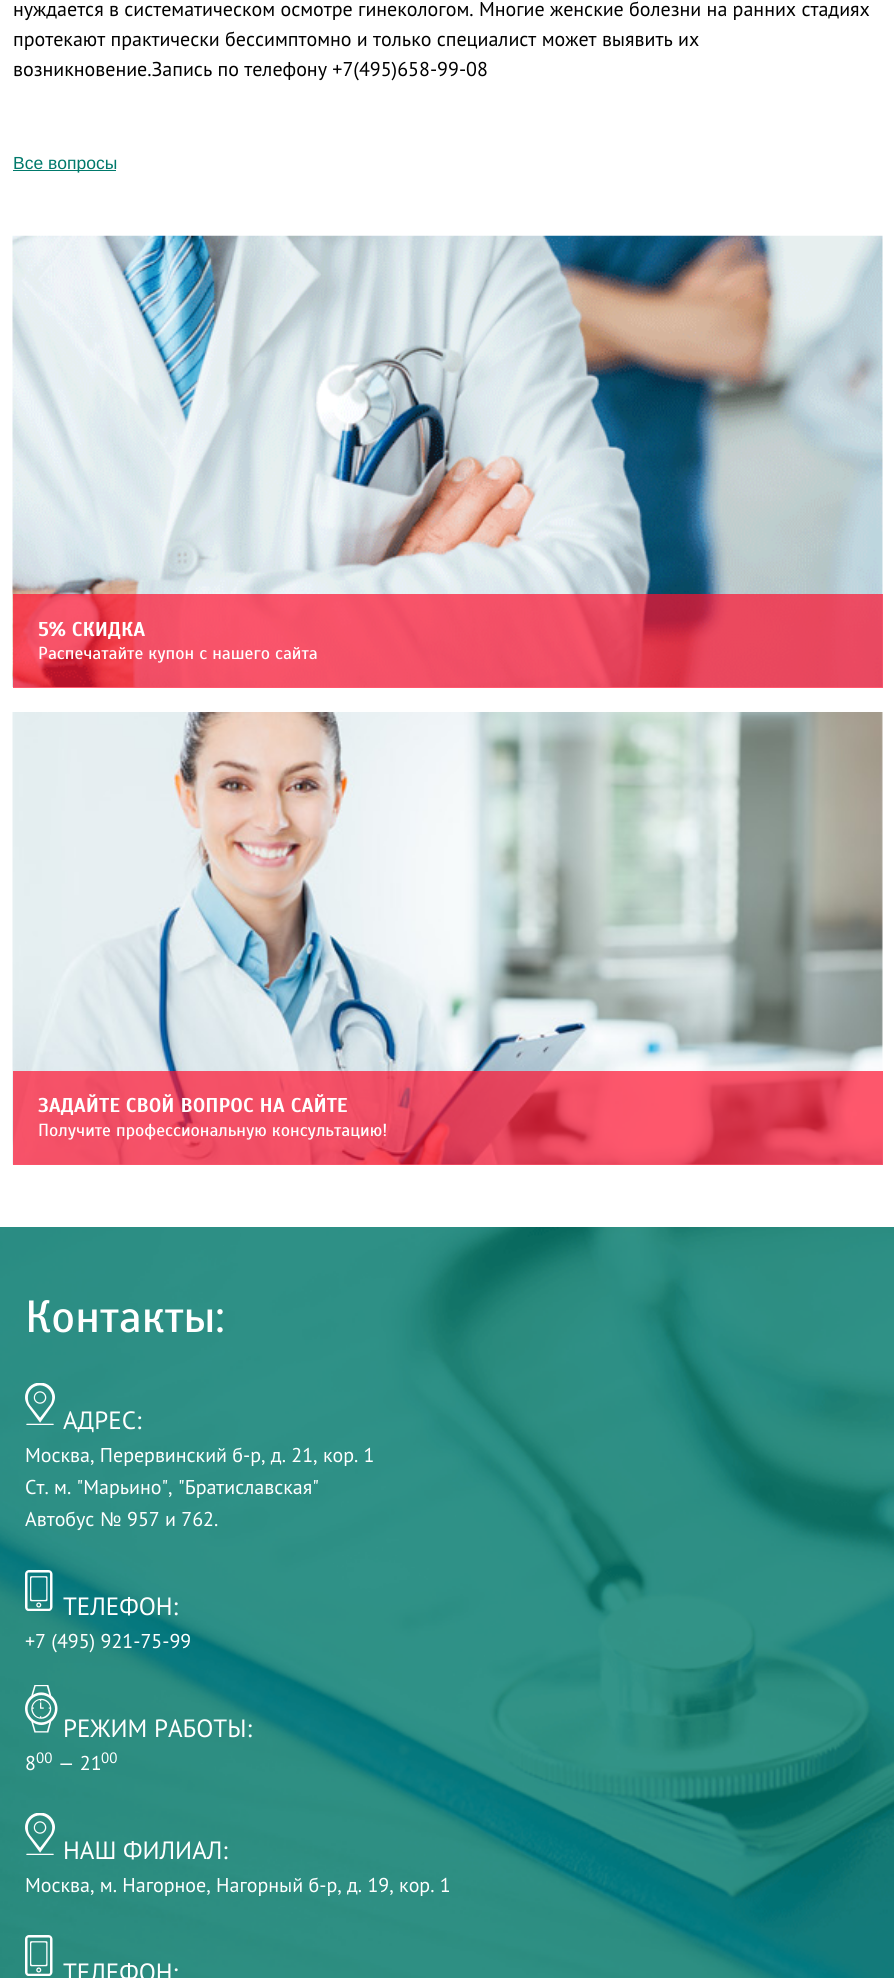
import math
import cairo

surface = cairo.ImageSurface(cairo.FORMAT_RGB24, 894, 1978)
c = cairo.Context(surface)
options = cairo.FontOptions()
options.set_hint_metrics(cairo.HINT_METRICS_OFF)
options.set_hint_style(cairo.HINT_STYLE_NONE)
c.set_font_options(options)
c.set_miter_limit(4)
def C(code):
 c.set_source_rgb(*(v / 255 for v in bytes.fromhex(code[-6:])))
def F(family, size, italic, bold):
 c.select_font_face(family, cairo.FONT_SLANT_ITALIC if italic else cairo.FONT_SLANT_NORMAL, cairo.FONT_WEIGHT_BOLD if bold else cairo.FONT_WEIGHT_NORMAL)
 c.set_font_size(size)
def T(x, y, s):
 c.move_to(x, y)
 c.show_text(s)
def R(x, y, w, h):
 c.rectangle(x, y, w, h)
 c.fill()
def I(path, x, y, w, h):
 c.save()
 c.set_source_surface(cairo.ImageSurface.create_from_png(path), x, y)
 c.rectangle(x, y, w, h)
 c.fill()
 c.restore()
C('ffffff')
c.paint()
F('PT Sans',20,0,0)
C('000000')
T(13,16,'нуждается в систематическом осмотре гинекологом. Многие женские болезни на ранних стадиях')
T(13,46,'протекают практически бессимптомно и только специалист может выявить их')
T(13,76,'возникновение.Запись по телефону +7(495)658-99-08')
C('00796b')
R(13,170,103,1)
F('Liberation Sans',17.5,0,0)
T(13,169,'Все вопросы')
I('1.png',12,235,871,452)
c.set_source_rgba(1,0.067,0.188,0.7)
R(13,594,870,94)
F('Scada',20,0,1)
C('ffffff')
T(38,636,'5% СКИДКА')
F('Scada',17.5,0,0)
T(38,659,'Распечатайте купон с нашего сайта')
I('2.png',12,712,871,453)
c.set_source_rgba(1,0.067,0.188,0.7)
R(13,1071,870,94)
F('Scada',20,0,1)
C('ffffff')
T(38,1112,'ЗАДАЙТЕ СВОЙ ВОПРОС НА САЙТЕ')
F('Scada',17.5,0,0)
T(38,1136,'Получите профессиональную консультацию!')
I('3.png',0,1227,894,751)
F('Scada',45,0,0)
T(25,1332,'Контакты:')
I('4.png',25,1383,30,42)
F('PT Sans',25,0,0)
T(63,1429,'АДРЕС:')
F('PT Sans',20,0,0)
T(25,1462,'Москва, Перервинский б-р, д. 21, кор. 1')
T(25,1494,'Ст. м. "Марьино", "Братиславская"')
T(25,1526,'Автобус')
F('Liberation Sans',20,0,0)
T(100,1526,'№')
F('PT Sans',20,0,0)
T(127,1526,'957 и 762.')
I('5.png',25,1570,28,41)
F('PT Sans',25,0,0)
T(63,1615,'ТЕЛЕФОН:')
F('PT Sans',20,0,0)
T(25,1648,'+7 (495) 921-75-99')
I('6.png',25,1685,33,48)
F('PT Sans',25,0,0)
T(63,1737,'РЕЖИМ РАБОТЫ:')
F('PT Sans',20,0,0)
T(25,1770,'8')
F('PT Sans',15,0,0)
T(36,1763,'00')
F('PT Sans',20,0,0)
T(58,1770,'— 21')
F('PT Sans',15,0,0)
T(101,1763,'00')
I('7.png',25,1813,30,42)
F('PT Sans',25,0,0)
T(63,1859,'НАШ ФИЛИАЛ:')
F('PT Sans',20,0,0)
T(25,1892,'Москва, м. Нагорное, Нагорный б-р, д. 19, кор. 1')
I('8.png',25,1935,28,41)
F('PT Sans',25,0,0)
T(63,1981,'ТЕЛЕФОН:')
surface.write_to_png('o.png')
